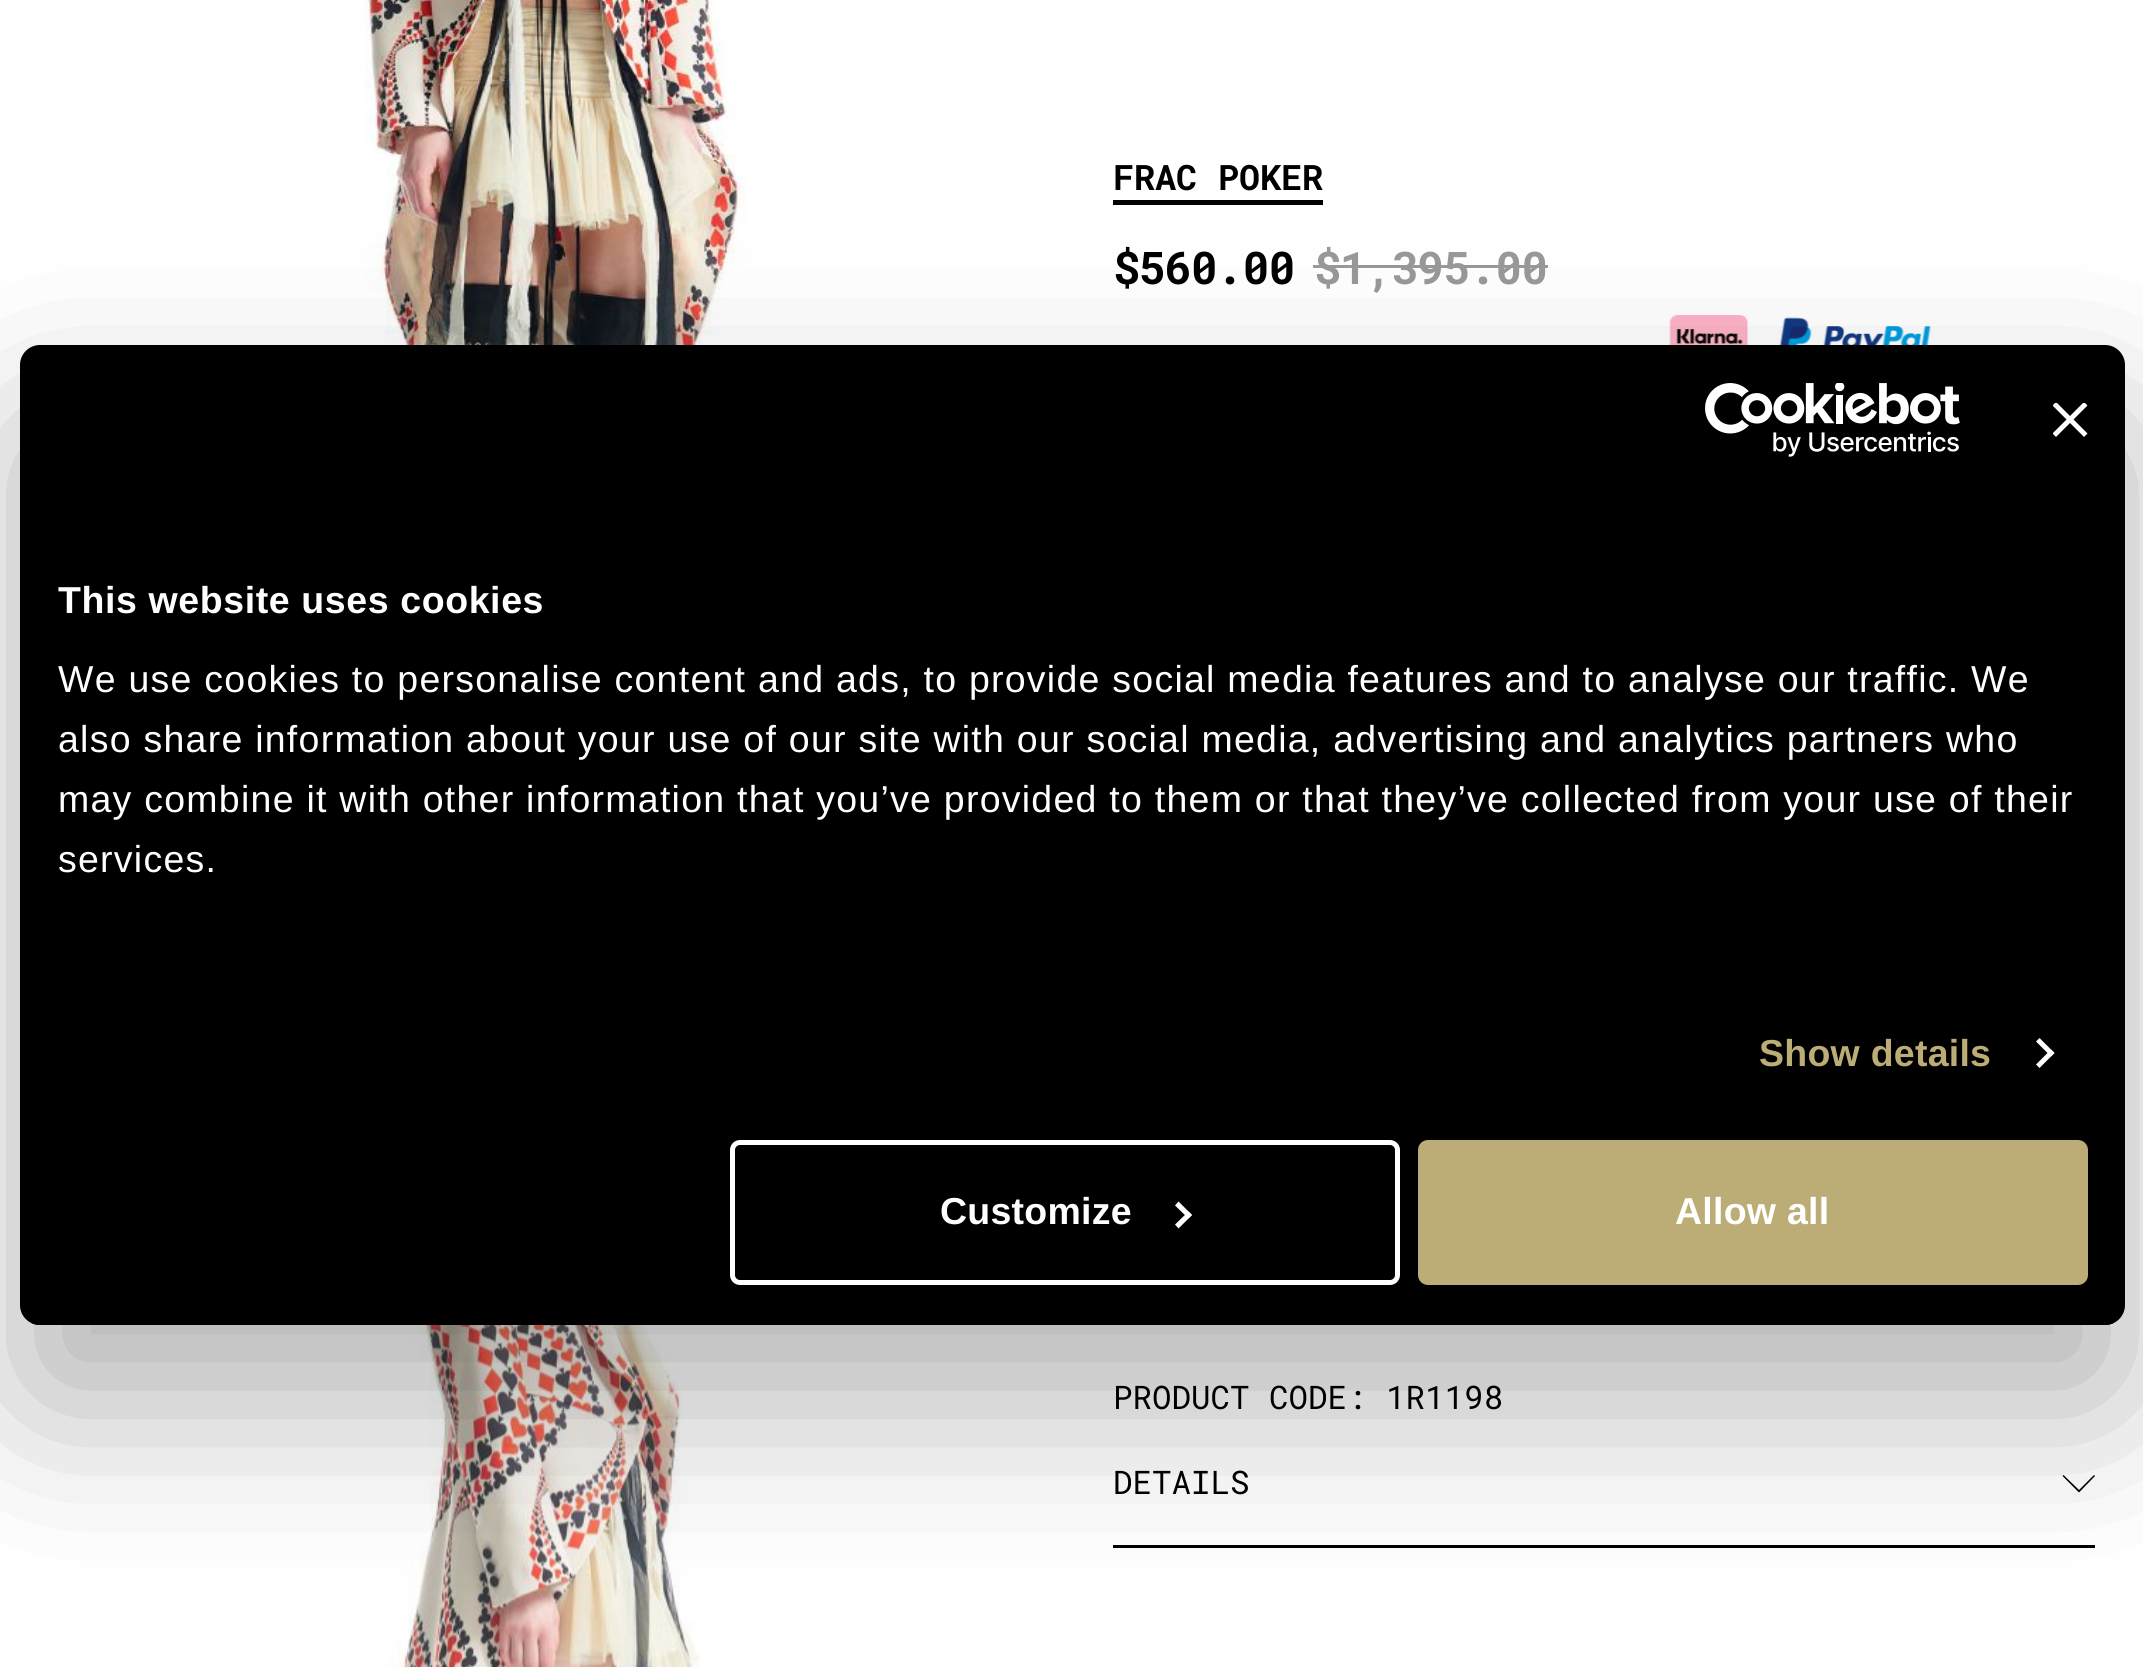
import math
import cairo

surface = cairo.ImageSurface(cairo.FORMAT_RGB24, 2143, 1667)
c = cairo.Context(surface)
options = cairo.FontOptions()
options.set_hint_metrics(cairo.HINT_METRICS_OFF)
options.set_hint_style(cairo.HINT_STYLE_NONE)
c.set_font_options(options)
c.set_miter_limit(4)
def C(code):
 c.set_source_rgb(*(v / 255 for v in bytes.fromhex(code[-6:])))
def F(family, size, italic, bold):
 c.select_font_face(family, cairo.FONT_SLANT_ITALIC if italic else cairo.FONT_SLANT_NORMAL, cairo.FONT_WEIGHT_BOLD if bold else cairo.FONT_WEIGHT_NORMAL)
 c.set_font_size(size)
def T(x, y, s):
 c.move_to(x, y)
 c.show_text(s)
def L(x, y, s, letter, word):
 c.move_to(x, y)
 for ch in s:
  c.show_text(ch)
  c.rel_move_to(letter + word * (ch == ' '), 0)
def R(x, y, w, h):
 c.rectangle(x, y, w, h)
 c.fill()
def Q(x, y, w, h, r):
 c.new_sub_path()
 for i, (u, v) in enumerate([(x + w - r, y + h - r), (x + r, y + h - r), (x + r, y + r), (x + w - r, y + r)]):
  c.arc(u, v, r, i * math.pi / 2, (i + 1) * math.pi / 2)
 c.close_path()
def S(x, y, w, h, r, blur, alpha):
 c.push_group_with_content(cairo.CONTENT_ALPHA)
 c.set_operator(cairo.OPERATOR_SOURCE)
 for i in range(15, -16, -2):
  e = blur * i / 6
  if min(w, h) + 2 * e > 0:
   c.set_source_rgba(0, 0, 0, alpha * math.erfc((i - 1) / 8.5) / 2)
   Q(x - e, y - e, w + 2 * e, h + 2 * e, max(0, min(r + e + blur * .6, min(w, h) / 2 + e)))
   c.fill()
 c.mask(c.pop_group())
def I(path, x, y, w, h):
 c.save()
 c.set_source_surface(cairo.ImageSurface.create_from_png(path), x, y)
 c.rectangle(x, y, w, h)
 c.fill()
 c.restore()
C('ffffff')
c.paint()
I('1.png',363,0,384,345)
I('2.png',386,1325,315,342)
F('Roboto Mono',35,0,1)
C('000000')
T(1113,190,'FRAC POKER')
R(1113,200,210,5)
F('Roboto Mono',45,0,1)
L(1113,284,'$560.00',-1.1,0)
C('999999')
L(1314,284,'$1,395.00',-1.1,0)
R(1313,265,235,3)
I('3.png',1669,315,79,30)
I('4.png',1779,317,152,28)
F('Roboto Mono',32.5,0,0)
C('000000')
T(1113,1409,'PRODUCT CODE: 1R1198')
R(1113,1545,982,3)
T(1113,1494,'DETAILS')
c.new_path()
c.move_to(2079,1492.5)
c.line_to(2095,1476)
c.line_to(2094,1475)
c.line_to(2079,1490)
c.line_to(2063.5,1475)
c.line_to(2062.5,1476)
c.close_path()
c.fill()
C('000000')
S(20,425,2105,980,20,85,.3)
C('000000')
Q(20,345,2105,980,20)
c.fill()
I('5.png',1705,383,255,74)
c.save()
c.rectangle(2053,403,35,35)
c.clip()
C('ffffff')
c.new_path()
c.move_to(2087.5,405.5)
c.line_to(2084,402)
c.line_to(2070,416)
c.line_to(2056,402)
c.line_to(2052.5,405.5)
c.line_to(2066.5,419.5)
c.line_to(2052.5,433.5)
c.line_to(2056,437)
c.line_to(2070,423)
c.line_to(2084,437)
c.line_to(2087.5,433.5)
c.line_to(2073.5,419.5)
c.close_path()
c.fill()
c.restore()
F('Liberation Sans',37.5,0,1)
C('ffffff')
L(58,613,'This website uses cookies',.6,0)
F('Liberation Sans',37.5,0,0)
L(58,692,'We use cookies to personalise content and ads, to provide social media features and to analyse our traffic. We',1.25,0)
L(58,752,'also share information about your use of our site with our social media, advertising and analytics partners who',1.25,0)
L(58,812,'may combine it with other information that you’ve provided to them or that they’ve collected from your use of their',1.25,0)
L(58,872,'services.',1.25,0)
F('Liberation Sans',37.5,0,1)
C('bbad75')
L(1759,1066,'Show details',.25,0)
C('ffffff')
c.new_path()
c.move_to(2039.5,1038)
c.line_to(2054.5,1053)
c.line_to(2051,1056.5)
c.line_to(2036,1041.5)
c.close_path()
c.fill()
c.new_path()
c.move_to(2051,1049.5)
c.line_to(2054.5,1053)
c.line_to(2039.5,1068)
c.line_to(2036,1064.5)
c.close_path()
c.fill()
c.save()
Q(20,345,2105,980,20)
c.clip()
C('000000')
R(31,1323,2083,2)
c.restore()
Q(732.5,1142.5,665,140,7.5)
c.set_line_width(5)
c.stroke()
L(940,1224,'Customize',.25,0)
c.new_path()
c.move_to(1178.5,1201.5)
c.line_to(1192,1215)
c.line_to(1188.5,1218.5)
c.line_to(1175,1205.5)
c.close_path()
c.fill()
c.new_path()
c.move_to(1188.5,1211.5)
c.line_to(1192,1215)
c.line_to(1178.5,1228.5)
c.line_to(1175,1224.5)
c.close_path()
c.fill()
C('bbad75')
Q(1420.5,1142.5,665,140,7.5)
c.fill_preserve()
c.stroke()
C('ffffff')
L(1675,1224,'Allow all',.25,0)
surface.write_to_png('o.png')
